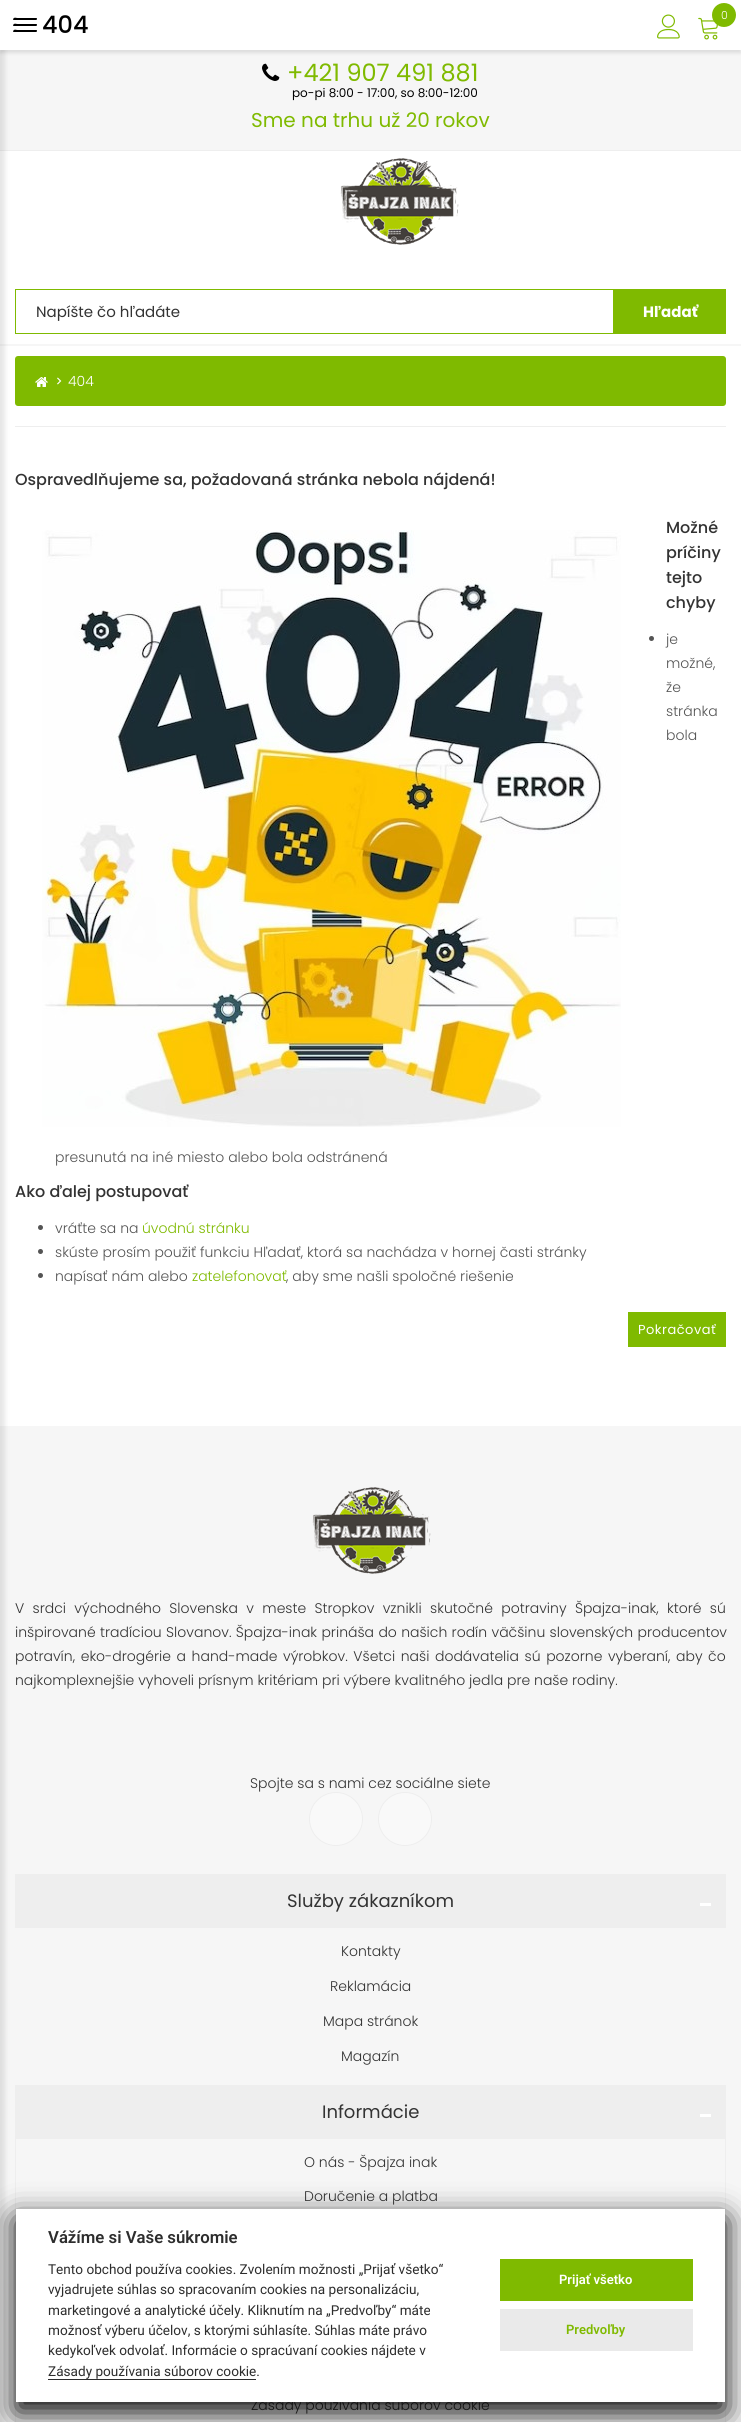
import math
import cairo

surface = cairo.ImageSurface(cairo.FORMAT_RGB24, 741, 2422)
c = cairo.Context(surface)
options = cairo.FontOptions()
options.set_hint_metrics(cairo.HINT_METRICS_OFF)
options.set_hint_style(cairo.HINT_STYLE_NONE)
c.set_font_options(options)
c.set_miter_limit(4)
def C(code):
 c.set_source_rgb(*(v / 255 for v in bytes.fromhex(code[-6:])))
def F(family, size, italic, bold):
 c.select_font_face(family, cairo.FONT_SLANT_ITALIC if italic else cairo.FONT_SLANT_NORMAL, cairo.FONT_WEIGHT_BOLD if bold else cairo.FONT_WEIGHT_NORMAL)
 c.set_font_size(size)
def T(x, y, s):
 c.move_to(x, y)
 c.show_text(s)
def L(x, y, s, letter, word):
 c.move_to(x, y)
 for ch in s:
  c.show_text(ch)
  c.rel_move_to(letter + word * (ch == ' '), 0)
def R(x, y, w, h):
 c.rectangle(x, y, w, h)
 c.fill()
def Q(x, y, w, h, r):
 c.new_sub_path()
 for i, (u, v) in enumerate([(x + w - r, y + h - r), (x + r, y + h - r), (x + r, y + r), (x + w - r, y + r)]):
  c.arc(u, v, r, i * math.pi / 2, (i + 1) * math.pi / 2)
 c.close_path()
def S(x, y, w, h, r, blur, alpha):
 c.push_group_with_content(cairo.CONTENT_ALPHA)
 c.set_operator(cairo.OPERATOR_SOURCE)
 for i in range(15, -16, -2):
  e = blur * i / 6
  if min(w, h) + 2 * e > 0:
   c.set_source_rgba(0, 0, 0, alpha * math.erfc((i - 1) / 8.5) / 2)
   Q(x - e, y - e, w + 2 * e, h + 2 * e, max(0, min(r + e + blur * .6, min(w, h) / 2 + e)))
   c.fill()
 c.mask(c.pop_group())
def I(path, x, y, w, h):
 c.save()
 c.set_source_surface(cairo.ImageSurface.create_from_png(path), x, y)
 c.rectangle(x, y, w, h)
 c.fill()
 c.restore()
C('ffffff')
c.paint()
C('f6f6f6')
R(0,50,741,100)
C('eeeeee')
R(0,150,741,1)
C('f6f6f6')
R(0,344,741,2)
R(0,1426,741,996)
C('000000')
S(-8,0,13,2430,0,2.5,.1)
S(0,3,741,50,0,1.5,.1)
C('ffffff')
R(0,0,741,50)
I('1.png',698,17,20,23)
C('7fba00')
c.arc(724,15,12,0,2 * math.pi)
c.fill()
F('Poppins Light',11,0,0)
C('ffffff')
T(721,19,'0')
I('2.png',340,158,119,87)
c.rectangle(15.5,289.5,710,44)
C('7fba00')
c.set_line_width(1)
c.stroke()
F('Poppins',15,0,0)
C('333333')
T(36,317,'Napíšte čo hľadáte')
C('7fba00')
c.new_path()
c.move_to(613,289)
c.line_to(723,289)
c.curve_to(724.5,289,726,290.5,726,292)
c.line_to(726,331)
c.curve_to(726,332.5,724.5,334,723,334)
c.line_to(613,334)
c.close_path()
c.fill()
F('Poppins',15,0,1)
C('ffffff')
T(643,317,'Hľadať')
I('3.png',657,14,23,25)
I('4.png',262,63,18,18)
F('Poppins',24,0,0)
C('7fba00')
T(287,81,'+421 907 491 881')
F('Poppins',12,0,0)
C('000000')
T(292,97,'po-pi 8:00 - 17:00, so 8:00-12:00')
F('Poppins',20,0,0)
C('7fba00')
T(251,127,'Sme na trhu už 20 rokov')
Q(15,356,711,50,3)
c.fill()
I('5.png',35,377,13,10)
I('6.png',57,377,5,8)
F('Poppins Light',14,0,0)
C('ffffff')
T(68,386,'404')
C('eeeeee')
R(15,426,711,1)
F('Poppins Medium',16,0,0)
C('333333')
T(15,485,'Ospravedlňujeme sa, požadovaná stránka nebola nájdená!')
T(666,533,'Možné')
T(666,558,'príčiny')
T(666,583,'tejto')
T(666,608,'chyby')
C('545454')
c.new_path()
c.arc(651.5,638.5,2.5,0,2 * math.pi)
c.fill()
F('Poppins Light',14,0,0)
T(666,644,'je')
T(666,668,'možné,')
T(666,692,'že')
T(666,716,'stránka')
T(666,740,'bola')
T(55,1162,'presunutá na iné miesto alebo bola odstránená')
F('Poppins Medium',16,0,0)
C('333333')
T(15,1197,'Ako ďalej postupovať')
C('545454')
c.new_path()
c.arc(40.5,1227.5,2.5,0,2 * math.pi)
c.fill()
F('Poppins Light',14,0,0)
T(55,1233,'vráťte sa na')
C('7fba00')
T(142,1233,'úvodnú stránku')
C('545454')
c.new_path()
c.arc(40.5,1251.5,2.5,0,2 * math.pi)
c.fill()
T(55,1257,'skúste prosím použiť funkciu Hľadať, ktorá sa nachádza v hornej časti stránky')
c.new_path()
c.arc(40.5,1275.5,2.5,0,2 * math.pi)
c.fill()
T(55,1281,'napísať nám alebo')
C('7fba00')
T(192,1281,'zatelefonovať')
C('545454')
T(286,1281,', aby sme našli spoločné riešenie')
I('7.png',42,530,579,597)
C('7fba00')
R(628,1312,98,35)
F('Poppins',13,0,0)
C('ffffff')
L(638,1334,'Pokračovať',.5,0)
I('8.png',312,1487,119,87)
F('Poppins Light',14,0,0)
C('333333')
L(15,1613,'V srdci východného Slovenska v meste Stropkov vznikli skutočné potraviny Špajza-inak, ktoré sú',0,4.5)
L(15,1637,'inšpirované tradíciou Slovanov. Špajza-inak prináša do našich rodín väčšinu slovenských producentov',0,.5)
L(15,1661,'potravín, eko-drogérie a hand-made výrobkov. Všetci naši dodávatelia sú pozorne vyberaní, aby čo',0,1.75)
T(15,1685,'najkomplexnejšie vyhoveli prísnym kritériam pri výbere kvalitného jedla pre naše rodiny.')
T(250,1788,'Spojte sa s nami cez sociálne siete')
C('f9f9f9')
c.new_path()
c.arc(336,1819,26.5,0,2 * math.pi)
c.fill_preserve()
C('eeeeee')
c.stroke()
C('f9f9f9')
c.arc(405,1819,26.5,0,2 * math.pi)
c.fill_preserve()
C('eeeeee')
c.stroke()
R(15,1874,711,54)
F('Poppins',18,0,0)
C('333333')
T(287,1907,'Služby zákazníkom')
C('ffffff')
R(700,1903,11,3)
F('Poppins Light',14,0,0)
C('333333')
T(341,1956,'Kontakty')
T(330,1991,'Reklamácia')
T(323,2026,'Mapa stránok')
T(341,2061,'Magazín')
C('eeeeee')
R(15,2085,711,54)
F('Poppins',18,0,0)
C('333333')
T(322,2118,'Informácie')
C('ffffff')
R(700,2114,11,3)
C('eeeeee')
c.set_fill_rule(cairo.FILL_RULE_EVEN_ODD)
c.new_path()
c.move_to(15,2139)
c.line_to(726,2139)
c.line_to(726,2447)
c.curve_to(726,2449,725,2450,723,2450)
c.line_to(18,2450)
c.curve_to(16,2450,15,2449,15,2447)
c.close_path()
c.move_to(16,2139)
c.line_to(725,2139)
c.line_to(725,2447)
c.curve_to(725,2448,724,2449,723,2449)
c.line_to(18,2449)
c.curve_to(17,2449,16,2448,16,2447)
c.close_path()
c.fill()
F('Poppins Light',14,0,0)
C('333333')
T(304,2167,'O nás - Špajza inak')
T(304,2201,'Doručenie a platba')
T(251,2410,'Zásady používania súborov cookie')
C('000000')
c.set_fill_rule(cairo.FILL_RULE_WINDING)
c.new_path()
c.move_to(36,26)
c.line_to(14,26)
c.curve_to(13,26,12.5,25,13.5,24.5)
c.curve_to(14.5,23,16,24,17.5,24)
c.line_to(36.5,24)
c.curve_to(37.5,24.5,37,26,36,26)
c.close_path()
c.move_to(36,32)
c.line_to(14,32)
c.curve_to(13,32,12.5,31,13.5,30.5)
c.curve_to(14.5,29,16,30,17.5,30)
c.line_to(36.5,30)
c.curve_to(37.5,30.5,37,32,36,32)
c.close_path()
c.move_to(36,20)
c.line_to(14,20)
c.curve_to(13,20,12.5,19,13.5,18.5)
c.curve_to(14.5,17,16,18,17.5,18)
c.line_to(36.5,18)
c.curve_to(37.5,18.5,37,20,36,20)
c.close_path()
c.fill()
F('Poppins Medium',24,0,0)
T(42,33,'404')
C('020202')
S(16,2219,709,193,0,15,1)
C('ffffff')
R(16,2209,709,193)
F('Roboto SemiBold',16.75,0,0)
C('2d2d2d')
T(48,2243,'Vážíme si Vaše súkromie')
F('Roboto',13.6,0,0)
T(48,2274,'Tento obchod používa cookies. Zvolením možnosti „Prijať všetko“')
T(48,2294,'vyjadrujete súhlas so spracovaním cookies na personalizáciu,')
T(48,2315,'marketingové a analytické účely. Kliknutím na „Predvoľby“ máte')
T(48,2335,'možnosť výberu účelov, s ktorými súhlasíte. Súhlas máte právo')
T(48,2355,'kedykoľvek odvolať. Informácie o spracúvaní cookies nájdete v')
R(48,2379,208,1)
T(48,2376,'Zásady používania súborov cookie.')
C('7fba00')
R(500,2259,193,42)
F('Roboto SemiBold',13,0,0)
C('ffffff')
T(559,2284,'Prijať všetko')
C('eaeaea')
R(500,2309,193,42)
C('7fba00')
T(566,2334,'Predvoľby')
surface.write_to_png('o.png')
